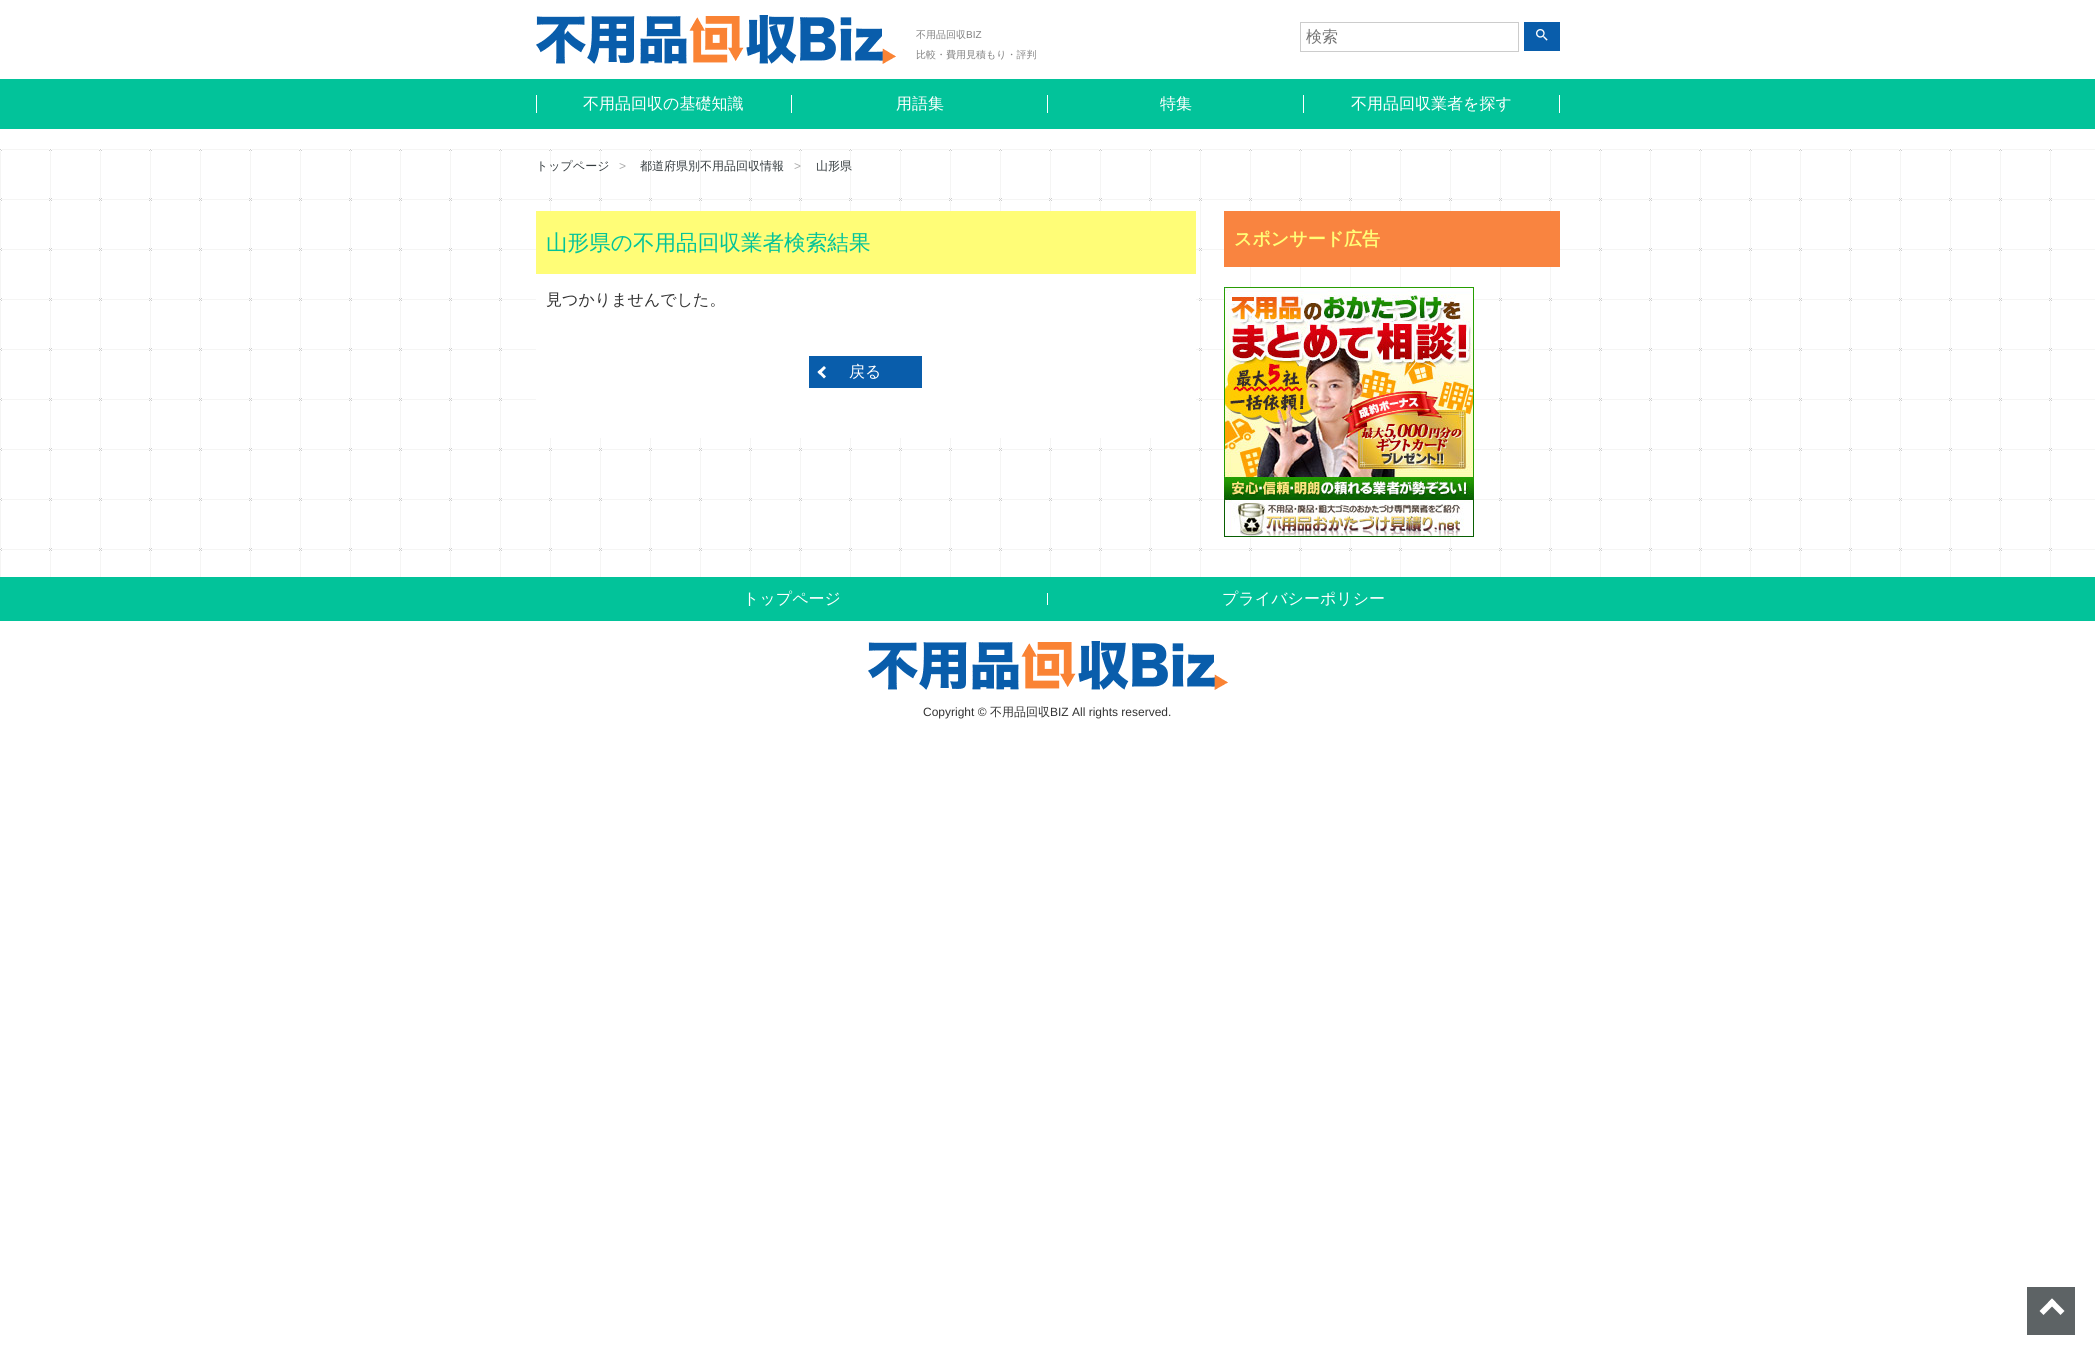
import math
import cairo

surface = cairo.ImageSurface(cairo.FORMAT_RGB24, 2095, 1355)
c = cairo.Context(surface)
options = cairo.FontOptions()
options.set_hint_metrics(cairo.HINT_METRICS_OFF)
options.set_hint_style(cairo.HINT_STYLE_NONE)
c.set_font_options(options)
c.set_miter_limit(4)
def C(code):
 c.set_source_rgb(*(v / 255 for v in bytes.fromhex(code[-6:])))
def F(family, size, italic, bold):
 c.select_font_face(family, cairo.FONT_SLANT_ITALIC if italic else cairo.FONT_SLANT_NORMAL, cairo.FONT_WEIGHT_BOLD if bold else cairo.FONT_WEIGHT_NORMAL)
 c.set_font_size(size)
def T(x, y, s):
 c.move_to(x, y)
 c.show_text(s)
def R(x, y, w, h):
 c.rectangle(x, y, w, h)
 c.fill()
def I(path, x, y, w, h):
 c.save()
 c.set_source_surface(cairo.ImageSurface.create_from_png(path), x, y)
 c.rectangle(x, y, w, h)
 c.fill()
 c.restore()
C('ffffff')
c.paint()
I('1.png',536,15,360,49)
F('WenQuanYi Zen Hei Medium',10,0,0)
C('808080')
T(916,38,'不用品回収')
F('Liberation Sans',10,0,0)
T(966,38,'BIZ')
F('WenQuanYi Zen Hei Medium',10,0,0)
T(916,58,'比較・費用見積もり・評判')
c.rectangle(1300.5,22.5,218,29)
C('cccccc')
c.set_line_width(1)
c.stroke()
F('WenQuanYi Zen Hei Medium',16,0,0)
C('757575')
T(1306,42,'検索')
C('095dab')
R(1524,22,36,29)
I('2.png',1536,29,12,12)
C('02c39a')
R(0,79,2095,50)
C('ffffff')
R(536,95,1,18)
T(583,109,'不用品回収の基礎知識')
R(791,95,1,18)
T(896,109,'用語集')
R(1047,95,1,18)
T(1160,109,'特集')
R(1303,95,1,18)
T(1351,109,'不用品回収業者を探す')
R(1559,95,1,18)
I('3.png',0,149,2095,428)
F('WenQuanYi Zen Hei Medium',12,0,0)
C('353c3f')
T(536,170,'トップページ')
F('Liberation Sans',12,0,0)
C('aaaaaa')
T(619,170,'>')
F('WenQuanYi Zen Hei Medium',12,0,0)
C('353c3f')
T(640,170,'都道府県別不用品回収情報')
F('Liberation Sans',12,0,0)
C('aaaaaa')
T(794,170,'>')
F('WenQuanYi Zen Hei Medium',12,0,0)
C('353c3f')
T(816,170,'山形県')
C('fffd77')
R(536,211,660,63)
F('WenQuanYi Zen Hei Medium',21.6,0,0)
C('02c39a')
T(546,250,'山形県の不用品回収業者検索結果')
C('ffffff')
R(536,274,660,164)
F('WenQuanYi Zen Hei Medium',16,0,0)
C('333333')
T(546,305,'見つかりませんでした。')
C('095dab')
R(809,356,113,32)
C('ffffff')
c.new_path()
c.move_to(824,378.5)
c.line_to(817.5,372)
c.line_to(819.5,370)
c.line_to(826,376.5)
c.close_path()
c.fill()
c.new_path()
c.move_to(819.5,374.5)
c.line_to(817.5,372)
c.line_to(824,366)
c.line_to(826,368)
c.close_path()
c.fill()
T(849,377,'戻る')
C('f98440')
R(1224,211,336,56)
F('WenQuanYi Zen Hei',18,0,1)
C('fffd77')
T(1234,245,'スポンサード広告')
I('4.png',1224,287,250,250)
C('02c39a')
R(0,577,2095,44)
F('WenQuanYi Zen Hei Medium',16,0,0)
C('ffffff')
T(743,604,'トップページ')
R(1047,593,1,12)
T(1222,604,'プライバシーポリシー')
I('1.png',868,641,360,49)
F('Liberation Sans',12,0,0)
C('333333')
T(923,716,'Copyright ©')
F('WenQuanYi Zen Hei Medium',12,0,0)
T(990,716,'不用品回収')
F('Liberation Sans',12,0,0)
T(1050,716,'BIZ All rights reserved.')
C('5d6365')
R(2027,1287,48,48)
C('ffffff')
c.new_path()
c.move_to(2039.5,1311)
c.line_to(2052,1298.5)
c.line_to(2056,1302.5)
c.line_to(2043.5,1315)
c.close_path()
c.fill()
c.new_path()
c.move_to(2048,1302.5)
c.line_to(2052,1298.5)
c.line_to(2064.5,1311)
c.line_to(2060.5,1315)
c.close_path()
c.fill()
surface.write_to_png('o.png')
